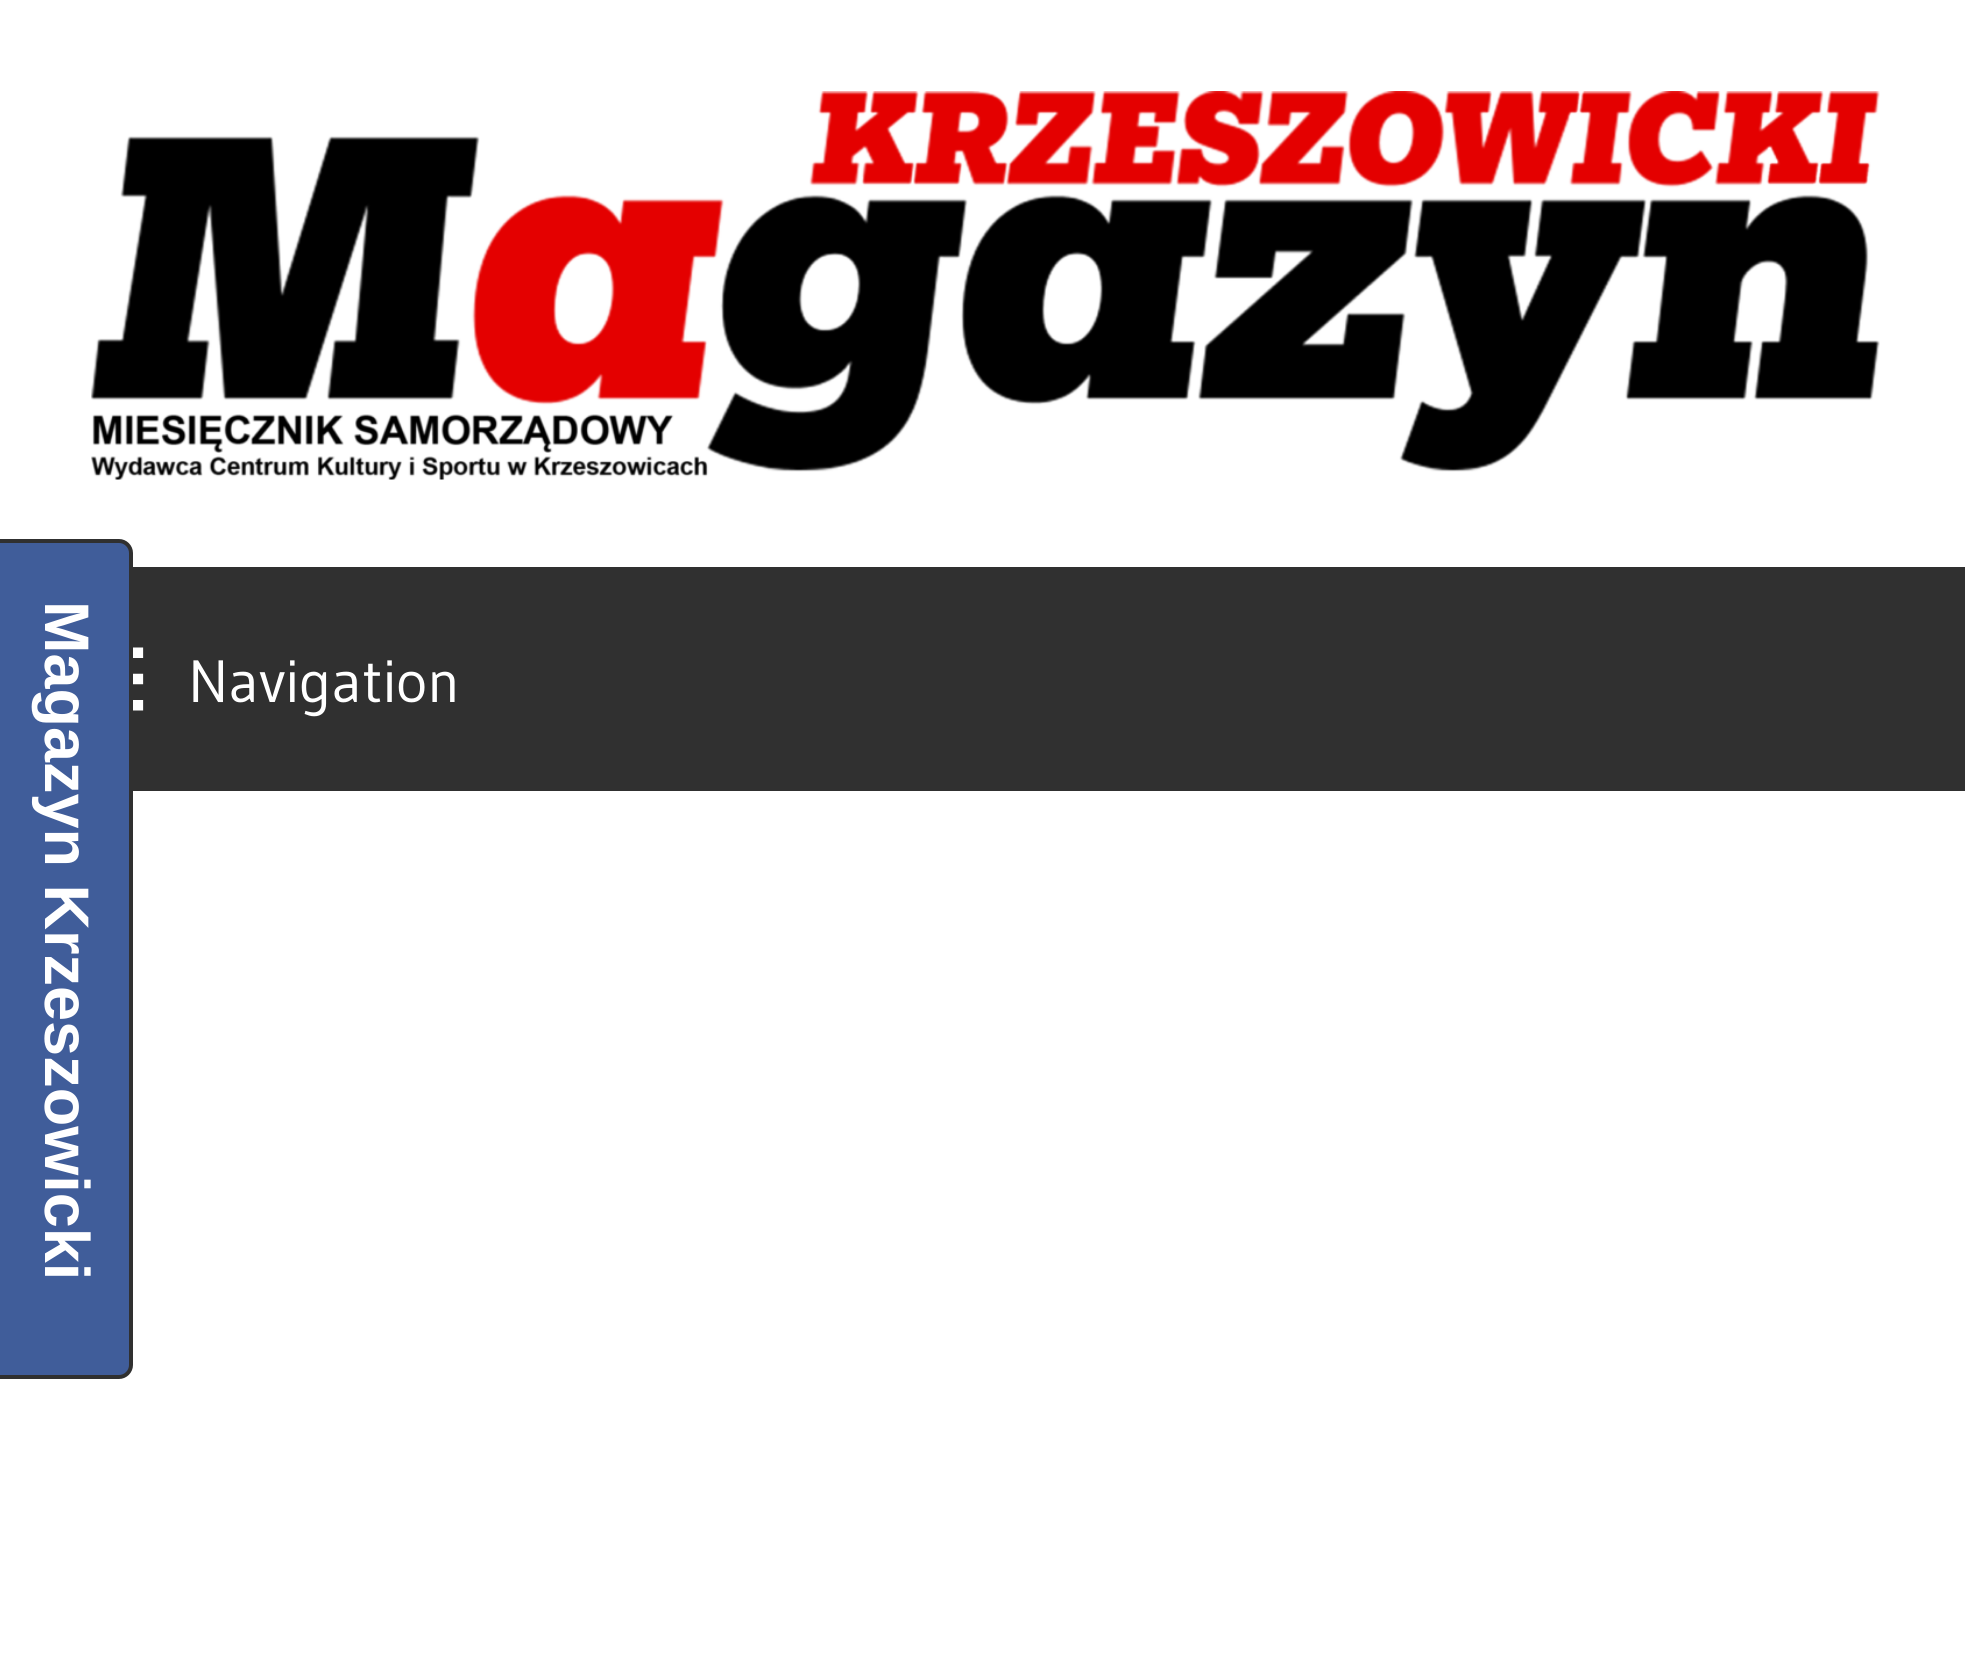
import math
import cairo

surface = cairo.ImageSurface(cairo.FORMAT_RGB24, 1965, 1676)
c = cairo.Context(surface)
options = cairo.FontOptions()
options.set_hint_metrics(cairo.HINT_METRICS_OFF)
options.set_hint_style(cairo.HINT_STYLE_NONE)
c.set_font_options(options)
c.set_miter_limit(4)
def C(code):
 c.set_source_rgb(*(v / 255 for v in bytes.fromhex(code[-6:])))
def F(family, size, italic, bold):
 c.select_font_face(family, cairo.FONT_SLANT_ITALIC if italic else cairo.FONT_SLANT_NORMAL, cairo.FONT_WEIGHT_BOLD if bold else cairo.FONT_WEIGHT_NORMAL)
 c.set_font_size(size)
def T(x, y, s):
 c.move_to(x, y)
 c.show_text(s)
def R(x, y, w, h):
 c.rectangle(x, y, w, h)
 c.fill()
def I(path, x, y, w, h):
 c.save()
 c.set_source_surface(cairo.ImageSurface.create_from_png(path), x, y)
 c.rectangle(x, y, w, h)
 c.fill()
 c.restore()
C('ffffff')
c.paint()
C('405d9a')
c.new_path()
c.move_to(-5,541)
c.line_to(119,541)
c.curve_to(125.5,541,131,546.5,131,553)
c.line_to(131,1365)
c.curve_to(131,1371.5,125.5,1377,119,1377)
c.line_to(-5,1377)
c.close_path()
c.fill_preserve()
C('303030')
c.set_line_width(4)
c.stroke()
F('Liberation Sans',63,0,1)
C('ffffff')
c.save()
c.translate(45,601)
c.rotate(90 * math.pi / 180)
T(0,0,'Magazyn Krzeszowicki')
c.restore()
I('1.png',91,91,1789,389)
C('303030')
R(133,567,1832,224)
I('2.png',133,647,11,64)
F('Gudea',59.5,0,0)
C('ffffff')
T(188,702,'Navigation')
surface.write_to_png('o.png')
